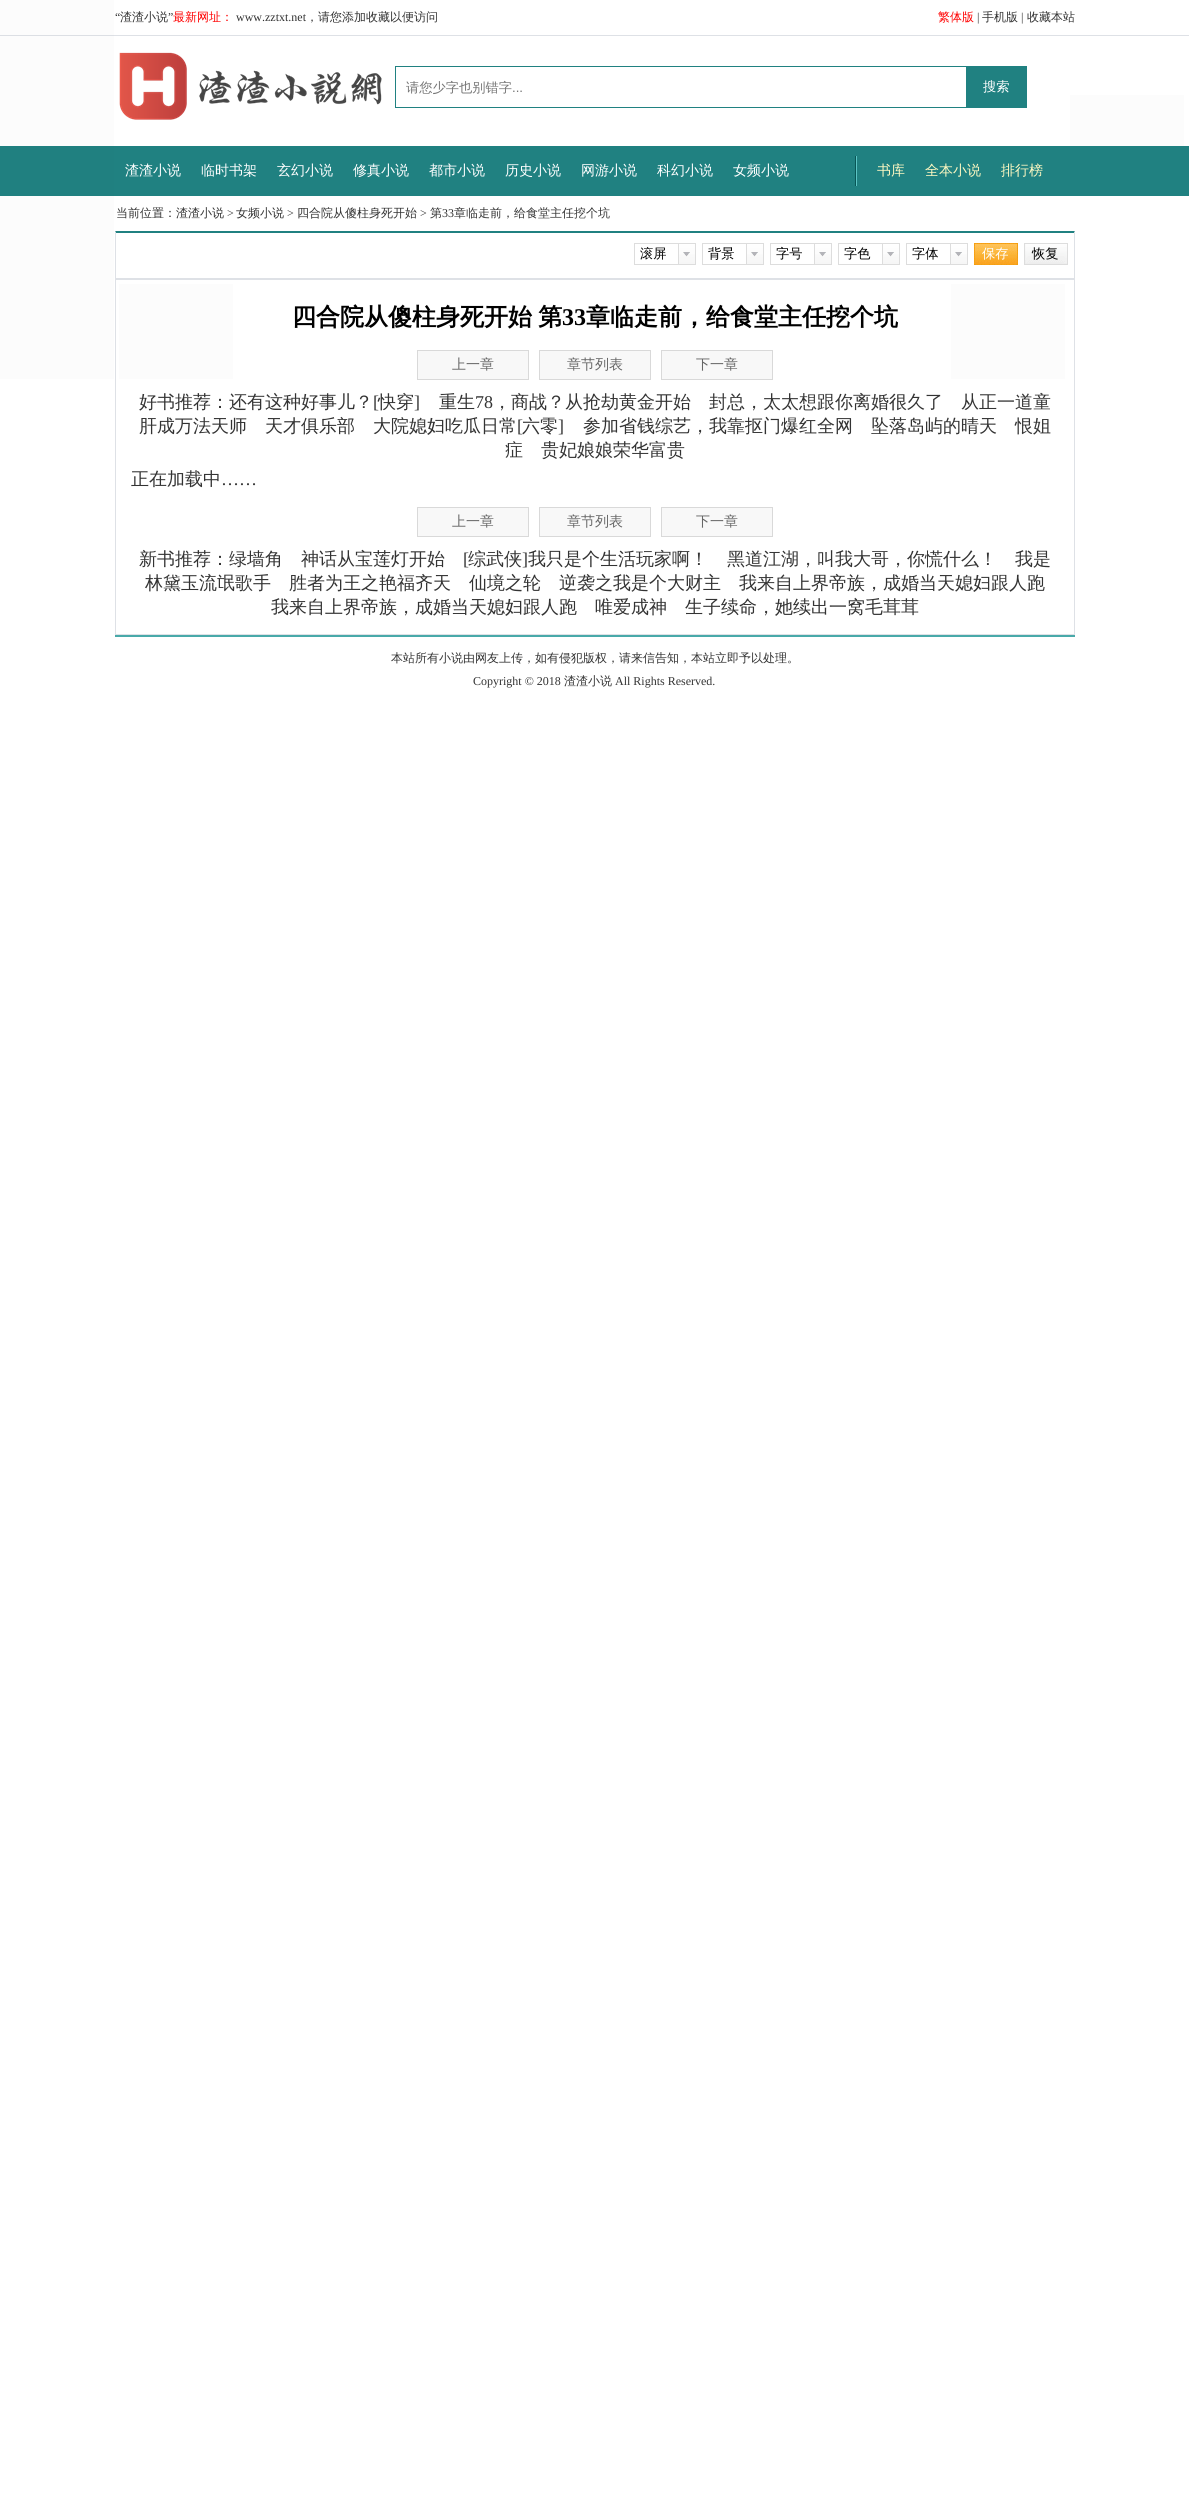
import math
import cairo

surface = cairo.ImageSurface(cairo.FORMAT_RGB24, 1189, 2493)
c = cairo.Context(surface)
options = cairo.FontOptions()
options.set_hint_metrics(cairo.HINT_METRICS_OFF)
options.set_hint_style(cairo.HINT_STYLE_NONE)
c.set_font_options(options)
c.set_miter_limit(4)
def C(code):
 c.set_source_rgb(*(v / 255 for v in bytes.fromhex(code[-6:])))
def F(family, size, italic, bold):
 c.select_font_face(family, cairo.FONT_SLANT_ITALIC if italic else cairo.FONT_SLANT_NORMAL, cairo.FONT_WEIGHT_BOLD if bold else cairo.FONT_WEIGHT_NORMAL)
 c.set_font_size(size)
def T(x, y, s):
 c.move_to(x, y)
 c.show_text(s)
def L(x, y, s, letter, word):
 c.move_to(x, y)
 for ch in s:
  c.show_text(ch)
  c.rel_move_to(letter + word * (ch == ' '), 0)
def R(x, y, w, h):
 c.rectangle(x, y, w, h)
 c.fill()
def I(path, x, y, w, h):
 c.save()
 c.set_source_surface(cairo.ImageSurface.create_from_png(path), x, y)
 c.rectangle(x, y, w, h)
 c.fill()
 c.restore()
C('ffffff')
c.paint()
C('fcfcfc')
R(0,196,114,183)
R(1070,95,114,51)
R(0,0,114,146)
C('dee1e6')
R(114,35,1075,1)
C('dcdfe4')
R(0,35,114,1)
F('Liberation Serif',12,0,0)
C('333333')
T(115,21,'“')
F('WenQuanYi Zen Hei Medium',12,0,0)
T(120,21,'渣渣小说')
F('Liberation Serif',12,0,0)
T(168,21,'”')
F('WenQuanYi Zen Hei Medium',12,0,0)
C('ff0000')
T(173,21,'最新网址：')
F('Liberation Serif',12,0,0)
C('333333')
T(236,21,'www.zztxt.net')
F('WenQuanYi Zen Hei Medium',12,0,0)
T(306,21,'，请您添加收藏以便访问')
C('ff0000')
T(938,21,'繁体版')
F('Liberation Serif',12,0,0)
C('333333')
T(977,21,'|')
F('WenQuanYi Zen Hei Medium',12,0,0)
T(982,21,'手机版')
F('Liberation Serif',12,0,0)
T(1021,21,'|')
F('WenQuanYi Zen Hei Medium',12,0,0)
T(1027,21,'收藏本站')
I('1.png',119,52,263,68)
c.rectangle(395.5,66.5,571,41)
C('208181')
c.set_line_width(1)
c.stroke()
F('WenQuanYi Zen Hei Medium',13.25,0,0)
C('757575')
T(406,92,'请您少字也别错字')
F('Liberation Sans',13.25,0,0)
T(512,92,'...')
C('208181')
R(967,66,60,42)
F('WenQuanYi Zen Hei Medium',13.25,0,0)
C('ffffff')
T(983,91,'搜索')
C('208181')
R(114,146,1075,50)
C('208080')
R(0,146,114,50)
C('085656')
R(855,156,1,30)
F('WenQuanYi Zen Hei Medium',14,0,0)
C('ffffff')
T(125,175,'渣渣小说')
T(201,175,'临时书架')
T(277,175,'玄幻小说')
T(353,175,'修真小说')
T(429,175,'都市小说')
T(505,175,'历史小说')
T(581,175,'网游小说')
T(657,175,'科幻小说')
T(733,175,'女频小说')
C('5cc5c5')
R(856,156,1,30)
C('fff9c2')
T(877,175,'书库')
T(925,175,'全本小说')
T(1001,175,'排行榜')
F('WenQuanYi Zen Hei Medium',12,0,0)
C('333333')
T(116,217,'当前位置：渣渣小说')
F('Liberation Serif',12,0,0)
T(227,217,'>')
F('WenQuanYi Zen Hei Medium',12,0,0)
T(236,217,'女频小说')
F('Liberation Serif',12,0,0)
T(287,217,'>')
F('WenQuanYi Zen Hei Medium',12,0,0)
T(297,217,'四合院从傻柱身死开始')
F('Liberation Serif',12,0,0)
T(420,217,'>')
F('WenQuanYi Zen Hei Medium',12,0,0)
T(430,217,'第')
F('Liberation Serif',12,0,0)
T(442,217,'33')
F('WenQuanYi Zen Hei Medium',12,0,0)
T(454,217,'章临走前，给食堂主任挖个坑')
C('208181')
c.new_path()
c.move_to(115,231)
c.line_to(1075,231)
c.line_to(1074,233)
c.line_to(116,233)
c.close_path()
c.fill()
C('dee1e6')
c.new_path()
c.move_to(1075,231)
c.line_to(1075,279)
c.line_to(1074,278)
c.line_to(1074,233)
c.close_path()
c.fill()
R(115,278,960,1)
c.new_path()
c.move_to(115,279)
c.line_to(115,231)
c.line_to(116,233)
c.line_to(116,278)
c.close_path()
c.fill()
c.rectangle(634.5,243.5,61,21)
C('dddddd')
c.stroke()
F('WenQuanYi Zen Hei Medium',13.25,0,0)
C('000000')
T(640,258,'滚屏')
I('2.png',678,244,17,20)
c.rectangle(702.5,243.5,61,21)
C('dddddd')
c.stroke()
C('000000')
T(708,258,'背景')
I('2.png',746,244,17,20)
c.rectangle(770.5,243.5,61,21)
C('dddddd')
c.stroke()
C('000000')
T(776,258,'字号')
I('2.png',814,244,17,20)
c.rectangle(838.5,243.5,61,21)
C('dddddd')
c.stroke()
C('000000')
T(844,258,'字色')
I('2.png',882,244,17,20)
c.rectangle(906.5,243.5,61,21)
C('dddddd')
c.stroke()
C('000000')
T(912,258,'字体')
I('2.png',950,244,17,20)
I('3.png',974,243,44,22)
C('ffffff')
T(982,258,'保存')
I('4.png',1024,243,44,22)
C('000000')
T(1032,258,'恢复')
c.rectangle(115.5,279.5,959,355)
C('dee1e6')
c.stroke()
C('fcfcfc')
R(119,284,114,95)
R(951,284,114,95)
F('WenQuanYi Zen Hei',24,0,1)
C('000000')
L(292,325,'四合院从傻柱身死开始 第',0,-1)
F('Liberation Serif',24,0,1)
T(562,325,'33')
F('WenQuanYi Zen Hei',24,0,1)
T(586,325,'章临走前，给食堂主任挖个坑')
C('f8f8f8')
c.rectangle(417.5,350.5,111,29)
c.fill_preserve()
C('d9d9d9')
c.stroke()
F('WenQuanYi Zen Hei Medium',14,0,0)
C('666666')
T(452,369,'上一章')
C('f8f8f8')
c.rectangle(539.5,350.5,111,29)
c.fill_preserve()
C('d9d9d9')
c.stroke()
C('666666')
T(567,369,'章节列表')
C('f8f8f8')
c.rectangle(661.5,350.5,111,29)
c.fill_preserve()
C('d9d9d9')
c.stroke()
C('666666')
T(696,369,'下一章')
F('WenQuanYi Zen Hei Medium',18,0,0)
C('333333')
T(139,408,'好书推荐：还有这种好事儿？')
F('Liberation Serif',18,0,0)
T(373,408,'[')
F('WenQuanYi Zen Hei Medium',18,0,0)
T(378,408,'快穿')
F('Liberation Serif',18,0,0)
T(414,408,']')
F('WenQuanYi Zen Hei Medium',18,0,0)
T(439,408,'重生')
F('Liberation Serif',18,0,0)
T(475,408,'78')
F('WenQuanYi Zen Hei Medium',18,0,0)
T(493,408,'，商战？从抢劫黄金开始')
T(709,408,'封总，太太想跟你离婚很久了')
T(961,408,'从正一道童')
T(139,432,'肝成万法天师')
T(265,432,'天才俱乐部')
T(373,432,'大院媳妇吃瓜日常')
F('Liberation Serif',18,0,0)
T(517,432,'[')
F('WenQuanYi Zen Hei Medium',18,0,0)
T(522,432,'六零')
F('Liberation Serif',18,0,0)
T(558,432,']')
F('WenQuanYi Zen Hei Medium',18,0,0)
T(583,432,'参加省钱综艺，我靠抠门爆红全网')
T(871,432,'坠落岛屿的晴天')
T(1015,432,'恨姐')
T(505,456,'症')
T(541,456,'贵妃娘娘荣华富贵')
T(131,485,'正在加载中')
F('Liberation Serif',18,0,0)
T(221,485,'……')
C('f8f8f8')
c.rectangle(417.5,507.5,111,29)
c.fill_preserve()
C('d9d9d9')
c.stroke()
F('WenQuanYi Zen Hei Medium',14,0,0)
C('666666')
T(452,526,'上一章')
C('f8f8f8')
c.rectangle(539.5,507.5,111,29)
c.fill_preserve()
C('d9d9d9')
c.stroke()
C('666666')
T(567,526,'章节列表')
C('f8f8f8')
c.rectangle(661.5,507.5,111,29)
c.fill_preserve()
C('d9d9d9')
c.stroke()
C('666666')
T(696,526,'下一章')
F('WenQuanYi Zen Hei Medium',18,0,0)
C('333333')
T(139,565,'新书推荐：绿墙角')
T(301,565,'神话从宝莲灯开始')
F('Liberation Serif',18,0,0)
T(463,565,'[')
F('WenQuanYi Zen Hei Medium',18,0,0)
T(468,565,'综武侠')
F('Liberation Serif',18,0,0)
T(522,565,']')
F('WenQuanYi Zen Hei Medium',18,0,0)
T(528,565,'我只是个生活玩家啊！')
T(727,565,'黑道江湖，叫我大哥，你慌什么！')
T(1015,565,'我是')
T(145,589,'林黛玉流氓歌手')
T(289,589,'胜者为王之艳福齐天')
T(469,589,'仙境之轮')
T(559,589,'逆袭之我是个大财主')
T(739,589,'我来自上界帝族，成婚当天媳妇跟人跑')
T(271,613,'我来自上界帝族，成婚当天媳妇跟人跑')
T(595,613,'唯爱成神')
T(685,613,'生子续命，她续出一窝毛茸茸')
C('49a9a9')
R(115,635,960,2)
F('WenQuanYi Zen Hei Medium',12,0,0)
C('333333')
T(391,662,'本站所有小说由网友上传，如有侵犯版权，请来信告知，本站立即予以处理。')
F('Liberation Serif',12,0,0)
T(473,685,'Copyright © 2018')
F('WenQuanYi Zen Hei Medium',12,0,0)
T(564,685,'渣渣小说')
F('Liberation Serif',12,0,0)
T(615,685,'All Rights Reserved.')
surface.write_to_png('o.png')
